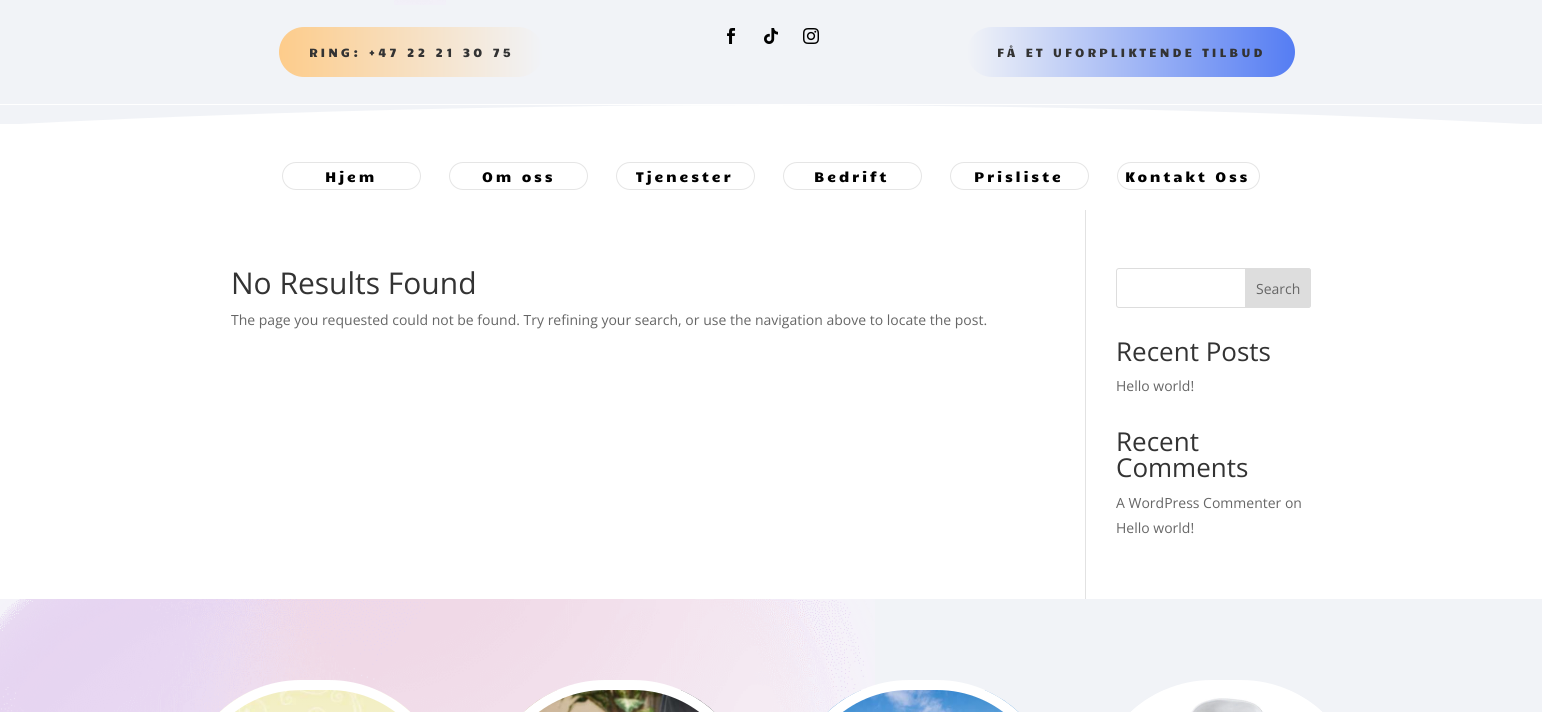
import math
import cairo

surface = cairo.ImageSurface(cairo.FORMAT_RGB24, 1542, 712)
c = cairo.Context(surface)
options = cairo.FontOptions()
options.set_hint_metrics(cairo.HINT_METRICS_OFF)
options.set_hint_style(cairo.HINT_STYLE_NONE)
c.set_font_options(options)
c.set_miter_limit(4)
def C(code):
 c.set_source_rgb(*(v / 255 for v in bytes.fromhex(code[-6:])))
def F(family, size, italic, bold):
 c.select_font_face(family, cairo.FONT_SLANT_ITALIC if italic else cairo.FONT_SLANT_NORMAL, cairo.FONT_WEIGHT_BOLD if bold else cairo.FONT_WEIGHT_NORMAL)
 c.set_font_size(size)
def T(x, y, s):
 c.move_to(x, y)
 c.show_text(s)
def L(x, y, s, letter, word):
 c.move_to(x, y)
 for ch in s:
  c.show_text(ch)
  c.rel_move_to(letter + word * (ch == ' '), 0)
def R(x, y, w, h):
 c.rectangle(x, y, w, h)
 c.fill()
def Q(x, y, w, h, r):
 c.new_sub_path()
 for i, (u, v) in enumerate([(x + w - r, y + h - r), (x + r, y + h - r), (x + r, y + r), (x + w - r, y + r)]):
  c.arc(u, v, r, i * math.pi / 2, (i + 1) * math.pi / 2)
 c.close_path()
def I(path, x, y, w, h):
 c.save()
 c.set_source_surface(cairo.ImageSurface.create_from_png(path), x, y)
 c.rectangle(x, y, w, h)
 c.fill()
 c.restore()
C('ffffff')
c.paint()
C('f1f3f7')
R(0,0,1542,104)
I('1.png',394,0,52,5)
I('2.png',727,28,9,16)
I('3.png',764,28,14,16)
I('4.png',803,28,16,16)
gradient = cairo.LinearGradient(279,52,543,52)
gradient.add_color_stop_rgba(0,0.992,0.8,0.545,1)
gradient.add_color_stop_rgba(1,0.945,0.953,0.969,1)
c.set_source(gradient)
Q(279,27,264,50,25)
c.fill()
F('Candal',12,0,0)
C('333333')
L(309,57,'RING: +47 22 21 30 75',3,0)
gradient = cairo.LinearGradient(967,52,1295,52)
gradient.add_color_stop_rgba(0,0.945,0.953,0.969,1)
gradient.add_color_stop_rgba(1,0.333,0.49,0.953,1)
c.set_source(gradient)
Q(967,27,328,50,25)
c.fill()
C('333333')
L(997,57,'FÅ ET UFORPLIKTENDE TILBUD',3,0)
c.save()
c.rectangle(0,104,1542,20)
c.clip()
C('f1f3f7')
c.new_path()
c.move_to(1542,105)
c.line_to(1542,125)
c.curve_to(1542,125,1197,105,771,105)
c.curve_to(345,105,0,125,0,125)
c.line_to(0,105)
c.close_path()
c.fill()
c.restore()
Q(282.5,162.5,138,27,13.5)
C('e5e5e5')
c.set_line_width(1)
c.stroke()
F('Candal',14,0,0)
C('000000')
L(325,182,'Hjem',2.75,0)
Q(449.5,162.5,138,27,13.5)
C('e5e5e5')
c.stroke()
C('000000')
L(482,182,'Om oss',2.75,0)
Q(616.5,162.5,138,27,13.5)
C('e5e5e5')
c.stroke()
C('000000')
L(636,182,'Tjenester',2.75,0)
Q(783.5,162.5,138,27,13.5)
C('e5e5e5')
c.stroke()
C('000000')
L(814,182,'Bedrift',2.75,0)
Q(950.5,162.5,138,27,13.5)
C('e5e5e5')
c.stroke()
C('000000')
L(974,182,'Prisliste',2.75,0)
Q(1117.5,162.5,142,27,13.5)
C('e5e5e5')
c.stroke()
C('000000')
L(1125,182,'Kontakt Oss',2.75,0)
C('e2e2e2')
R(1085,210,1,389)
F('Open Sans',30,0,0)
C('333333')
T(231,294,'No Results Found')
F('Open Sans',14,0,0)
C('666666')
T(231,325,'The page you requested could not be found. Try refining your search, or use the navigation above to locate the post.')
Q(1116.5,268.5,194,39,2.5)
C('dddddd')
c.stroke()
c.new_path()
c.move_to(1245.5,268.5)
c.line_to(1308,268.5)
c.curve_to(1309.5,268.5,1310.5,269.5,1310.5,271)
c.line_to(1310.5,305)
c.curve_to(1310.5,306.5,1309.5,307.5,1308,307.5)
c.line_to(1245.5,307.5)
c.close_path()
c.fill_preserve()
c.stroke()
C('666666')
T(1256,294,'Search')
F('Open Sans',26,0,0)
C('333333')
T(1116,361,'Recent Posts')
F('Open Sans',14,0,0)
C('666666')
T(1116,391,'Hello world!')
F('Open Sans',26,0,0)
C('333333')
T(1116,451,'Recent')
T(1116,477,'Comments')
F('Open Sans',14,0,0)
C('666666')
T(1116,508,'A WordPress Commenter on')
T(1116,533,'Hello world!')
C('f1f3f7')
R(0,599,1542,113)
I('5.png',0,599,875,113)
I('6.png',220,690,190,22)
C('ffffff')
c.set_fill_rule(cairo.FILL_RULE_EVEN_ODD)
c.new_path()
c.move_to(301,680)
c.line_to(329,680)
c.curve_to(395,680,449,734,449,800)
c.line_to(449,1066)
c.line_to(181,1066)
c.line_to(181,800)
c.curve_to(181,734,235,680,301,680)
c.close_path()
c.move_to(301,690)
c.line_to(329,690)
c.curve_to(390,690,439,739,439,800)
c.line_to(439,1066)
c.line_to(191,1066)
c.line_to(191,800)
c.curve_to(191,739,240,690,301,690)
c.close_path()
c.fill()
I('7.png',524,690,191,22)
c.new_path()
c.move_to(605,680)
c.line_to(633,680)
c.curve_to(699,680,753,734,753,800)
c.line_to(753,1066)
c.line_to(485,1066)
c.line_to(485,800)
c.curve_to(485,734,539,680,605,680)
c.close_path()
c.move_to(605,690)
c.line_to(633,690)
c.curve_to(694,690,743,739,743,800)
c.line_to(743,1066)
c.line_to(495,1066)
c.line_to(495,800)
c.curve_to(495,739,544,690,605,690)
c.close_path()
c.fill()
I('8.png',827,690,192,22)
c.new_path()
c.move_to(909,680)
c.line_to(937,680)
c.curve_to(1003,680,1057,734,1057,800)
c.line_to(1057,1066)
c.line_to(789,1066)
c.line_to(789,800)
c.curve_to(789,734,843,680,909,680)
c.close_path()
c.move_to(909,690)
c.line_to(937,690)
c.curve_to(998,690,1047,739,1047,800)
c.line_to(1047,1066)
c.line_to(799,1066)
c.line_to(799,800)
c.curve_to(799,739,848,690,909,690)
c.close_path()
c.fill()
I('9.png',1131,690,191,22)
c.new_path()
c.move_to(1212,680)
c.line_to(1241,680)
c.curve_to(1307,680,1361,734,1361,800)
c.line_to(1361,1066)
c.line_to(1092,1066)
c.line_to(1092,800)
c.curve_to(1092,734,1146,680,1212,680)
c.close_path()
c.move_to(1212,690)
c.line_to(1241,690)
c.curve_to(1302,690,1351,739,1351,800)
c.line_to(1351,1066)
c.line_to(1102,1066)
c.line_to(1102,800)
c.curve_to(1102,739,1151,690,1212,690)
c.close_path()
c.fill()
surface.write_to_png('o.png')
